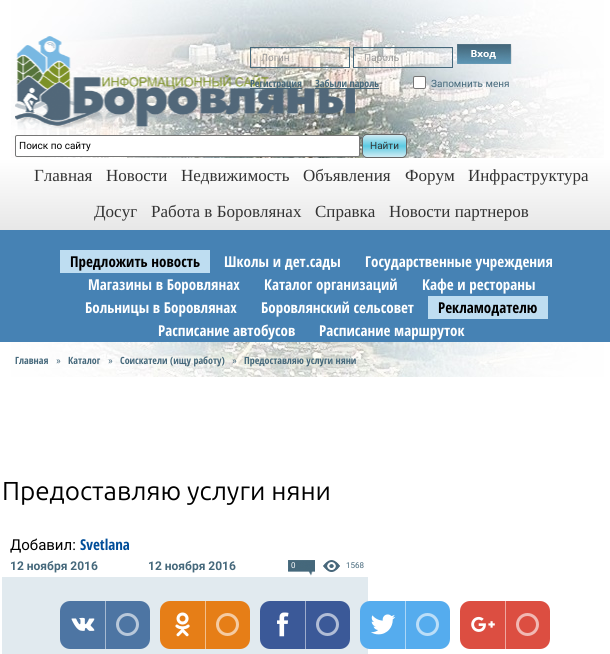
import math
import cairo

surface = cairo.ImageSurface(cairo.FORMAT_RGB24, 610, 654)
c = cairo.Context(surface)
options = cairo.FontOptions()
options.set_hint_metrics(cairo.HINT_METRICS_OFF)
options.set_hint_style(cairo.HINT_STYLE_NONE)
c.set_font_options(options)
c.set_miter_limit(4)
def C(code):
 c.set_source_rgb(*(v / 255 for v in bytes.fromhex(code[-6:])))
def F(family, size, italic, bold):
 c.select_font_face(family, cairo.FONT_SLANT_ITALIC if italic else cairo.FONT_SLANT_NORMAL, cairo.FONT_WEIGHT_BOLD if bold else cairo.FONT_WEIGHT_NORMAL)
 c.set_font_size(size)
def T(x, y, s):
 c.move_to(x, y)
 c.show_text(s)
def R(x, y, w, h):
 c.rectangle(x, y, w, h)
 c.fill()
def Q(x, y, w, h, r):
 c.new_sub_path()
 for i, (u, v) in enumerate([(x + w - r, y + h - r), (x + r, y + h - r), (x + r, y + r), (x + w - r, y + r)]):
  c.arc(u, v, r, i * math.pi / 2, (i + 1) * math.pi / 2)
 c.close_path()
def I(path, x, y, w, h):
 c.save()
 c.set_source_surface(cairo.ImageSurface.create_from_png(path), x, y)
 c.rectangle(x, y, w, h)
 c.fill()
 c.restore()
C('ffffff')
c.paint()
I('1.png',11,0,593,377)
I('2.png',15,36,340,94)
c.set_source_rgba(0,0,0,0.07)
R(251,48,98,1)
c.rectangle(250.5,47.5,99,20)
C('45687b')
c.set_line_width(1)
c.stroke()
F('Roboto',10,0,0)
C('999999')
T(261,61,'Логин')
c.set_source_rgba(0,0,0,0.07)
R(354,48,98,1)
c.rectangle(353.5,47.5,99,20)
C('45687b')
c.stroke()
C('999999')
T(364,61,'Пароль')
C('efefef')
R(457,44,55,20)
I('3.png',457,44,55,20)
C('45687b')
R(250,88,52,1)
F('Open Sans Condensed',10,0,1)
T(250,87,'Регистрация')
R(315,88,64,1)
T(315,87,'Забыли пароль')
C('ffffff')
Q(413.5,76.5,12,12,1.5)
c.fill_preserve()
C('767676')
c.stroke()
F('Roboto',10,0,0)
C('45687b')
T(431,87,'Запомнить меня')
C('ffffff')
Q(15.5,135.5,344,21,1.5)
c.fill_preserve()
C('767676')
c.stroke()
C('000000')
T(19,149,'Поиск по сайту')
c.save()
Q(362,134,45,24,5)
c.clip()
gradient = cairo.LinearGradient(363,135,363,157)
gradient.add_color_stop_rgba(0,0.816,0.925,0.957,1)
gradient.add_color_stop_rgba(.5,0.357,0.788,0.882,1)
gradient.add_color_stop_rgba(1,0.816,0.925,0.957,1)
c.set_source(gradient)
R(362,135,45,22)
c.restore()
Q(362.5,134.5,44,23,4.5)
C('666666')
c.stroke()
C('333333')
T(370,149,'Найти')
gradient = cairo.LinearGradient(305,230,305,158)
gradient.add_color_stop_rgba(0,0.906,0.906,0.906,1)
gradient.add_color_stop_rgba(1,1,1,1,1)
c.set_source(gradient)
R(0,158,610,72)
F('Liberation Serif',17,0,0)
C('333333')
T(34,181,'Главная')
T(106,181,'Новости')
T(181,181,'Недвижимость')
T(303,181,'Объявления')
T(405,181,'Форум')
T(468,181,'Инфраструктура')
T(94,217,'Досуг')
T(151,217,'Работа в Боровлянах')
T(315,217,'Справка')
T(389,217,'Новости партнеров')
C('4682b4')
R(0,230,610,112)
C('beddf1')
R(60,250,150,23)
F('Open Sans Condensed',15,0,1)
C('000000')
T(70,267,'Предложить новость')
C('ffffff')
T(224,267,'Школы и дет.сады')
T(365,267,'Государственные учреждения')
T(88,290,'Магазины в Боровлянах')
T(264,290,'Каталог организаций')
T(422,290,'Кафе и рестораны')
T(85,313,'Больницы в Боровлянах')
T(261,313,'Боровлянский сельсовет')
C('beddf1')
R(428,296,120,23)
C('000000')
T(438,313,'Рекламодателю')
C('ffffff')
T(158,336,'Расписание автобусов')
T(319,336,'Расписание маршруток')
F('Open Sans Condensed',10,0,1)
C('45687b')
T(15,364,'Главная')
F('Roboto',10,0,0)
T(56,364,'»')
F('Open Sans Condensed',10,0,1)
T(68,364,'Каталог')
F('Roboto',10,0,0)
T(108,364,'»')
F('Open Sans Condensed',10,0,1)
T(120,364,'Соискатели (ищу работу)')
F('Roboto',10,0,0)
T(232,364,'»')
F('Open Sans Condensed',10,0,1)
T(244,364,'Предоставляю услуги няни')
F('Ubuntu',26,0,0)
C('000000')
T(2,500,'Предоставляю услуги няни')
F('Roboto',15,0,0)
T(10,550,'Добавил:')
F('Open Sans Condensed',15,0,1)
C('004d99')
T(80,550,'Svetlana')
F('Roboto',12,0,1)
C('45687b')
T(10,570,'12 ноября 2016')
T(148,570,'12 ноября 2016')
I('4.png',288,560,27,16)
F('Roboto',8,0,0)
C('ffffff')
T(291,568,'0')
I('5.png',323,560,17,12)
C('45687b')
T(346,568,'1568')
C('e1eaef')
R(2,577,366,77)
C('4d75a3')
Q(60,601,90,48,10)
c.fill()
I('6.png',71,617,24,14)
C('a6bad1')
R(105,601,1,48)
c.arc(127.5,624.5,10,0,2 * math.pi)
C('b8c8da')
c.set_line_width(3)
c.stroke()
C('e67e17')
Q(160,601,90,48,10)
c.fill()
I('7.png',175,612,15,25)
C('f3bf8b')
R(205,601,1,48)
c.arc(227.5,624.5,10,0,2 * math.pi)
C('f5cba2')
c.stroke()
C('3b5998')
Q(260,601,90,48,10)
c.fill()
I('8.png',277,612,12,25)
C('9daccc')
R(305,601,1,48)
c.arc(327.5,624.5,10,0,2 * math.pi)
C('b1bdd6')
c.stroke()
C('55acee')
Q(360,601,90,48,10)
c.fill()
I('9.png',371,614,25,21)
C('aad6f7')
R(405,601,1,48)
c.arc(427.5,624.5,10,0,2 * math.pi)
C('bbdef8')
c.stroke()
C('dc4e41')
Q(460,601,90,48,10)
c.fill()
I('10.png',471,616,24,16)
C('eea7a0')
R(505,601,1,48)
c.arc(527.5,624.5,10,0,2 * math.pi)
C('f1b8b3')
c.stroke()
surface.write_to_png('o.png')
